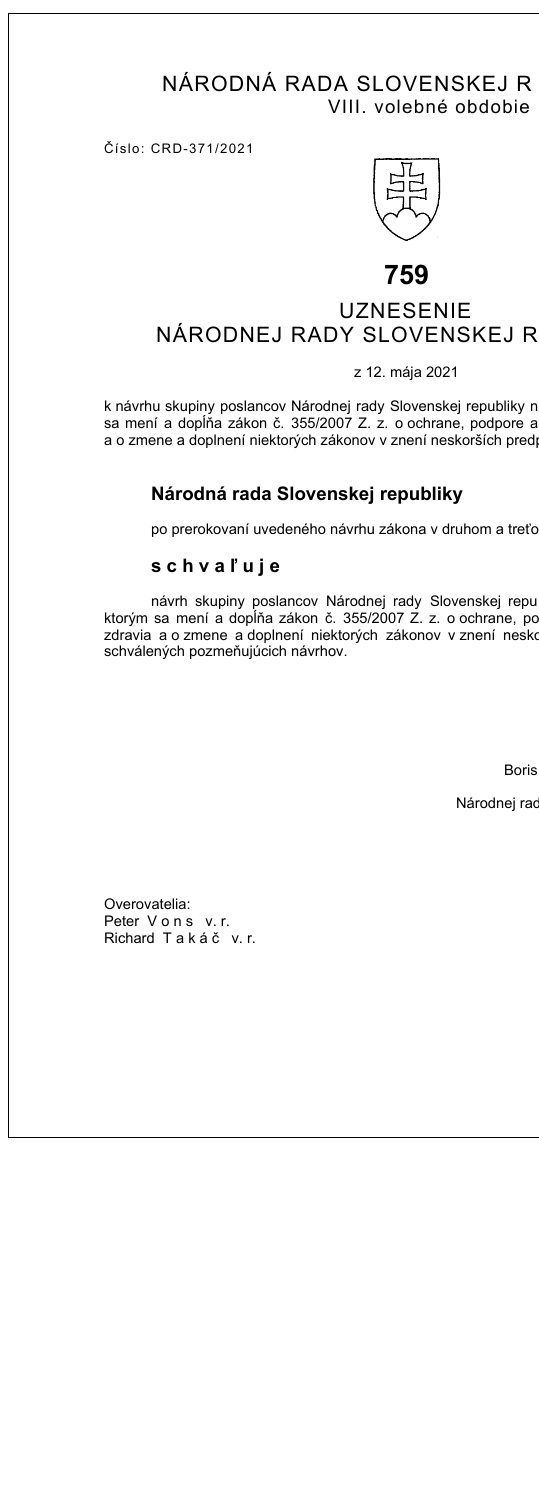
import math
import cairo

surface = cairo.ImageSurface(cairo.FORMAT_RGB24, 539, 1502)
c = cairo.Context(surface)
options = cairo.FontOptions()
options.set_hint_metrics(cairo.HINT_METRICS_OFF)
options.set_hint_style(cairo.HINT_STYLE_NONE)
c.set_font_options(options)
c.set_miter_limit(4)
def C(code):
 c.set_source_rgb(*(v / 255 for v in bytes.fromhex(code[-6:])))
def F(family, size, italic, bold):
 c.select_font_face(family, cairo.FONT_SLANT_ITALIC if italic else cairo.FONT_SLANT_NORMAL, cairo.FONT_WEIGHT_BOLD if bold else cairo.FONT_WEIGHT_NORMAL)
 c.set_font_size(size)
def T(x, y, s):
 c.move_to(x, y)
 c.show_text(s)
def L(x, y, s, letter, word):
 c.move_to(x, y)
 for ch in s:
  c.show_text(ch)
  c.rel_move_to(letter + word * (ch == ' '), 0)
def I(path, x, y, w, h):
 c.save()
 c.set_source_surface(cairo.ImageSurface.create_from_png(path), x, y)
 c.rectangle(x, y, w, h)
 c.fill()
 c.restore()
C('ffffff')
c.paint()
c.rectangle(8.5,13.5,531,1124)
C('000000')
c.set_line_width(1)
c.stroke()
F('Arial',21.3,0,0)
L(162,91,'NÁRODNÁ RADA SLOVENSKEJ R',1.3,0)
F('Arial',18.7,0,0)
L(328,113,'VIII. volebné obdobie',1.3,0)
F('Arial',13.25,0,0)
L(104,153,'Číslo: CRD-371/2021',1.3,0)
I('1.png',373,157,68,85)
F('Arial',27,0,1)
T(384,284,'759')
F('Arial',21.3,0,0)
L(339,318,'UZNESENIE',1.3,0)
L(156,342,'NÁRODNEJ RADY SLOVENSKEJ R',1.3,0)
F('Arial',14.7,0,0)
T(354,377,'z 12. mája 2021')
T(104,411,'k návrhu')
T(165,411,'skupiny')
T(220,411,'poslancov')
T(291,411,'Národnej')
T(356,411,'rady')
T(390,411,'Slovenskej')
T(466,411,'republiky')
T(530,411,'n')
T(104,428,'sa')
T(125,428,'mení')
T(164,428,'a')
T(178,428,'dopĺňa')
T(228,428,'zákon')
T(273,428,'č.')
T(291,428,'355/2007')
T(358,428,'Z.')
T(377,428,'z.')
T(395,428,'o ochrane,')
T(470,428,'podpore')
T(530,428,'a')
T(104,445,'a o zmene a doplnení niektorých zákonov v znení neskorších predp')
F('Arial',18.7,0,1)
T(151,500,'Národná rada Slovenskej republiky')
F('Arial',14.7,0,0)
T(151,534,'po prerokovaní uvedeného návrhu zákona v druhom a treťo')
F('Arial',18.7,0,1)
T(151,572,'s c h v a ľ u j e')
F('Arial',14.7,0,0)
T(151,606,'návrh')
T(195,606,'skupiny')
T(252,606,'poslancov')
T(326,606,'Národnej')
T(393,606,'rady')
T(430,606,'Slovenskej')
T(508,606,'repu')
T(104,623,'ktorým')
T(154,623,'sa')
T(176,623,'mení')
T(215,623,'a')
T(229,623,'dopĺňa')
T(279,623,'zákon')
T(325,623,'č.')
T(343,623,'355/2007')
T(410,623,'Z.')
T(429,623,'z.')
T(447,623,'o ochrane,')
T(523,623,'po')
T(104,640,'zdravia')
T(159,640,'a o zmene')
T(235,640,'a doplnení')
T(311,640,'niektorých')
T(386,640,'zákonov')
T(448,640,'v znení')
T(503,640,'nesko')
T(104,656,'schválených pozmeňujúcich návrhov.')
T(504,775,'Boris')
T(456,808,'Národnej rad')
T(104,909,'Overovatelia:')
T(104,926,'Peter  V o n s   v. r.')
T(104,943,'Richard  T a k á č   v. r.')
surface.write_to_png('o.png')
